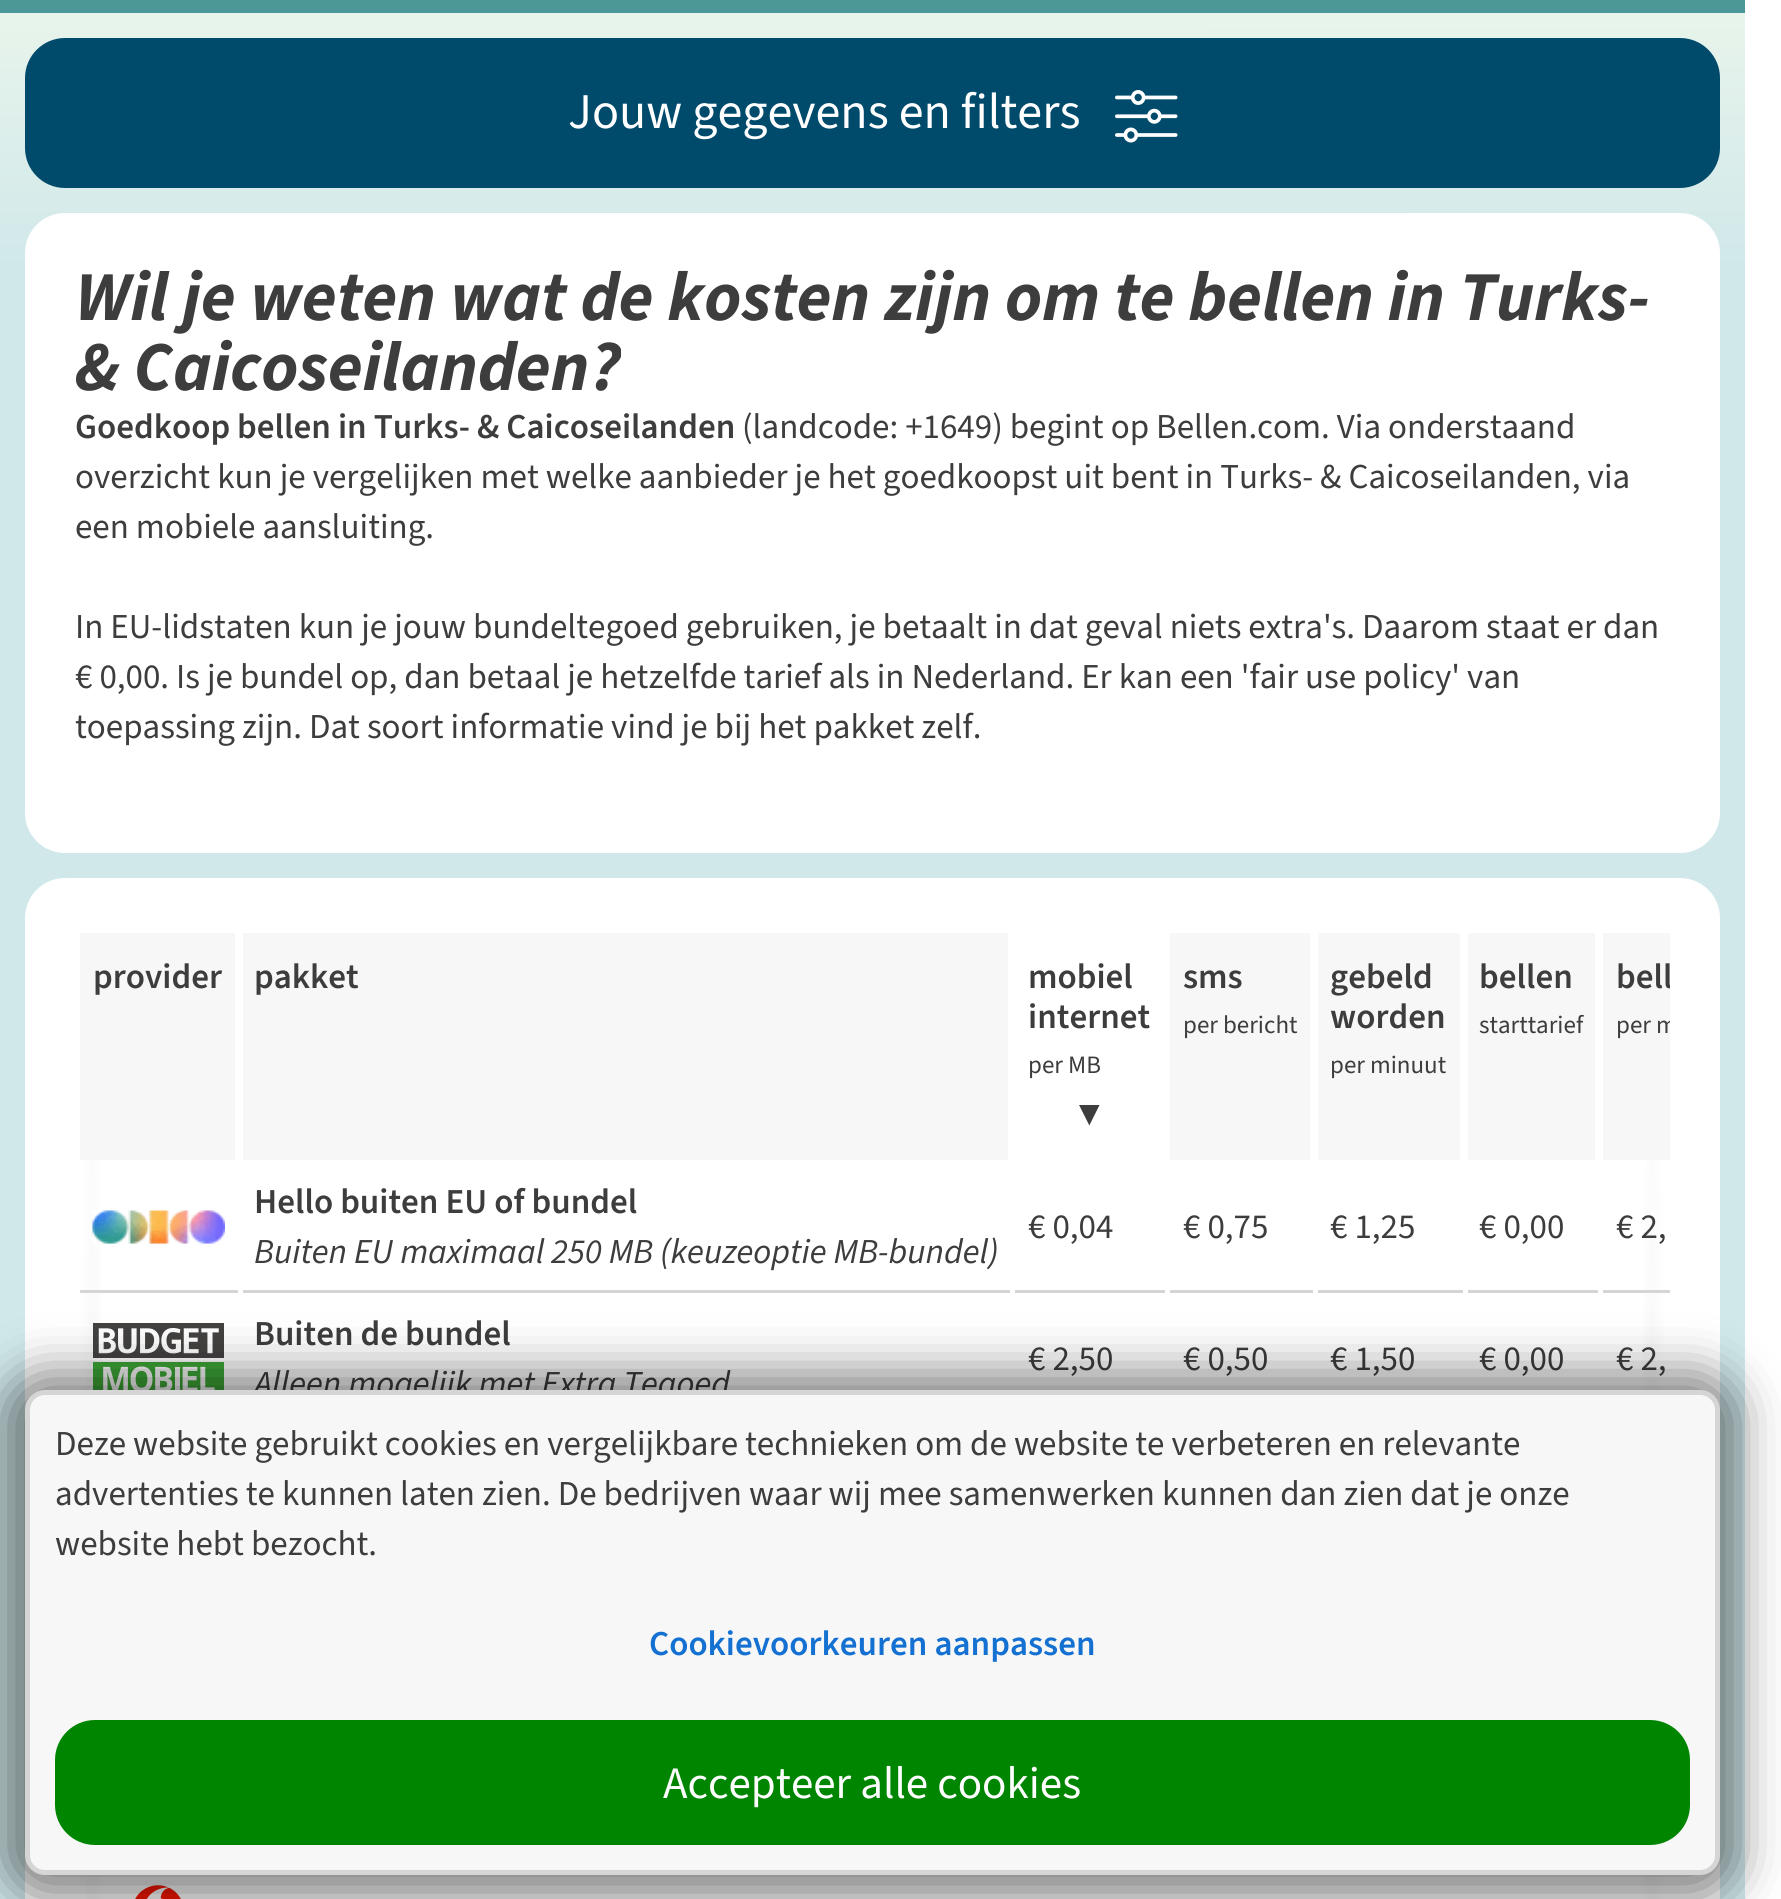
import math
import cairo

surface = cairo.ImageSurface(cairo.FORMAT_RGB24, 1781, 1899)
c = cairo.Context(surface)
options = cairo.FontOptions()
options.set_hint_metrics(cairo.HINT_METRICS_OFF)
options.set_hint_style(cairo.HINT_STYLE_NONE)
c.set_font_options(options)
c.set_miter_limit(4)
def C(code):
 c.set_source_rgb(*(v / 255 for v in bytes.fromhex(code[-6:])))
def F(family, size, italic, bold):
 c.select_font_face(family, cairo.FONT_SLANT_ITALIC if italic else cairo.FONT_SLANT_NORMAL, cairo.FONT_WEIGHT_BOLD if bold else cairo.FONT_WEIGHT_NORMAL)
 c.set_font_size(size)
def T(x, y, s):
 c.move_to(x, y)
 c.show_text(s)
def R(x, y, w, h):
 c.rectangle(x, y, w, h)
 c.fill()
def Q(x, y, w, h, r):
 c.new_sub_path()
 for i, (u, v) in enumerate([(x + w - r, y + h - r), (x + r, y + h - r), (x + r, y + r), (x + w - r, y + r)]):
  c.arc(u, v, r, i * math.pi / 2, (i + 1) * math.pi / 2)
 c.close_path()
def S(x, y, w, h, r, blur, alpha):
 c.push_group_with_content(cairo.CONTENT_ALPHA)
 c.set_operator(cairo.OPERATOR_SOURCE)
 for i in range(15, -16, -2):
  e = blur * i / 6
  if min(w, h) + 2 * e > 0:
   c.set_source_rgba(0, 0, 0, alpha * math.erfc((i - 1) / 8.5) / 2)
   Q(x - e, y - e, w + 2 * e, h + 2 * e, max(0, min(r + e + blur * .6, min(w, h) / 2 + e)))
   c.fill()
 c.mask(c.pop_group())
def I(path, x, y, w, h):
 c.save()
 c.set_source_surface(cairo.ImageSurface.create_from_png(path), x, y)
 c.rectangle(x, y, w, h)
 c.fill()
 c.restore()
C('ffffff')
c.paint()
gradient = cairo.LinearGradient(873,-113,873,13)
gradient.add_color_stop_rgba(0,0.357,0.682,0.443,1)
gradient.add_color_stop_rgba(1,0.294,0.588,0.604,1)
c.set_source(gradient)
R(0,0,1745,13)
gradient = cairo.LinearGradient(872,13,873,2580)
gradient.add_color_stop_rgba(0,0.91,0.957,0.922,1)
gradient.add_color_stop_rgba(.1,0.816,0.91,0.918,1)
gradient.add_color_stop_rgba(1,0.816,0.91,0.918,1)
c.set_source(gradient)
R(0,13,1745,1886)
C('004a6b')
Q(25,38,1695,150,40)
c.fill()
F('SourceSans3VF',50,0,0)
C('ffffff')
T(568,128,'Jouw gegevens en filters')
I('1.png',1115,90,63,53)
Q(25,213,1695,640,40)
c.fill()
F('SourceSans3VF',70,1,1)
C('3d3d3d')
T(75,320,'Wil je weten wat de kosten zijn om te bellen in Turks-')
T(75,390,'& Caicoseilanden?')
F('SourceSans3VF SemiBold',35,0,0)
T(75,438,'Goedkoop bellen in Turks- & Caicoseilanden')
F('SourceSans3VF',35,0,0)
T(742,438,'(landcode: +1649) begint op Bellen.com. Via onderstaand')
T(75,488,'overzicht kun je vergelijken met welke aanbieder je het goedkoopst uit bent in Turks- & Caicoseilanden, via')
T(75,538,'een mobiele aansluiting.')
T(75,638,'In EU-lidstaten kun je jouw bundeltegoed gebruiken, je betaalt in dat geval niets extra\'s. Daarom staat er dan')
T(75,688,'€ 0,00. Is je bundel op, dan betaal je hetzelfde tarief als in Nederland. Er kan een \'fair use policy\' van')
T(75,738,'toepassing zijn. Dat soort informatie vind je bij het pakket zelf.')
C('ffffff')
Q(25,878,1695,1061,40)
c.fill()
gradient = cairo.RadialGradient(0,0,0,0,0,1)
gradient.set_matrix(cairo.Matrix(1 / 21, 0, 0, 1 / 983, -1 * 1655 / 21, -1 * 1623 / 983))
gradient.add_color_stop_rgba(0,0.8,0.8,0.8,1)
gradient.add_color_stop_rgba(.7,1,1,1,1)
c.set_source(gradient)
R(1641,971,28,928)
gradient = cairo.RadialGradient(0,0,0,0,0,1)
gradient.set_matrix(cairo.Matrix(1 / 21, 0, 0, 1 / 983, -1 * 90 / 21, -1 * 1623 / 983))
gradient.add_color_stop_rgba(0,0.8,0.8,0.8,1)
gradient.add_color_stop_rgba(.7,1,1,1,1)
c.set_source(gradient)
R(76,971,28,928)
gradient = cairo.LinearGradient(1670,1623,1570,1623)
gradient.add_color_stop_rgba(0,1,1,1,1)
gradient.add_color_stop_rgba(1,1,1,1,0)
c.set_source(gradient)
R(1641,975,28,924)
gradient = cairo.LinearGradient(75,1623,175,1623)
gradient.add_color_stop_rgba(0,1,1,1,1)
gradient.add_color_stop_rgba(1,1,1,1,0)
c.set_source(gradient)
R(76,975,28,924)
C('f7f7f7')
R(80,933,155,227)
F('SourceSans3VF SemiBold',35,0,0)
C('3d3d3d')
T(93,988,'provider')
C('f7f7f7')
R(243,933,765,227)
C('3d3d3d')
T(254,988,'pakket')
T(1028,988,'mobiel')
T(1028,1028,'internet')
F('SourceSans3VF',25,0,0)
T(1028,1073,'per MB')
F('Liberation Sans',35,0,1)
T(1072,1125,'▼')
C('f7f7f7')
R(1170,933,140,227)
F('SourceSans3VF SemiBold',35,0,0)
C('3d3d3d')
T(1183,988,'sms')
F('SourceSans3VF',25,0,0)
T(1183,1033,'per bericht')
C('f7f7f7')
R(1318,933,142,227)
F('SourceSans3VF SemiBold',35,0,0)
C('3d3d3d')
T(1330,988,'gebeld')
T(1330,1028,'worden')
F('SourceSans3VF',25,0,0)
T(1330,1073,'per minuut')
C('f7f7f7')
R(1468,933,127,227)
F('SourceSans3VF SemiBold',35,0,0)
C('3d3d3d')
T(1479,988,'bellen')
F('SourceSans3VF',25,0,0)
T(1479,1033,'starttarief')
C('f7f7f7')
R(1603,933,67,227)
c.save()
c.rectangle(75,928,1595,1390)
c.clip()
F('SourceSans3VF SemiBold',35,0,0)
C('3d3d3d')
T(1616,988,'bell')
F('SourceSans3VF',25,0,0)
T(1616,1033,'per m')
c.restore()
C('d5d5d5')
R(80,1290,158,3)
I('2.png',92,1210,133,34)
R(243,1290,767,3)
F('SourceSans3VF SemiBold',35,0,0)
C('3d3d3d')
T(254,1213,'Hello buiten EU of bundel')
F('SourceSans3VF',35,1,0)
T(254,1263,'Buiten EU maximaal 250 MB (keuzeoptie MB-bundel)')
C('d5d5d5')
R(1015,1290,150,3)
F('SourceSans3VF',35,0,0)
C('3d3d3d')
T(1028,1238,'€ 0,04')
C('d5d5d5')
R(1170,1290,143,3)
C('3d3d3d')
T(1183,1238,'€ 0,75')
C('d5d5d5')
R(1318,1290,145,3)
C('3d3d3d')
T(1330,1238,'€ 1,25')
C('d5d5d5')
R(1468,1290,130,3)
C('3d3d3d')
T(1479,1238,'€ 0,00')
C('d5d5d5')
R(1603,1290,67,3)
C('3d3d3d')
T(1616,1238,'€ 2,')
I('3.png',93,1323,131,67)
F('SourceSans3VF SemiBold',35,0,0)
T(254,1345,'Buiten de bundel')
F('SourceSans3VF',35,1,0)
T(254,1395,'Alleen mogelijk met Extra Tegoed')
F('SourceSans3VF',35,0,0)
T(1028,1370,'€ 2,50')
T(1183,1370,'€ 0,50')
T(1330,1370,'€ 1,50')
T(1479,1370,'€ 0,00')
T(1616,1370,'€ 2,')
I('4.png',135,1885,46,14)
C('000000')
S(3,1373,1735,525,40,25,.5)
C('f7f7f7')
Q(27.5,1392.5,1690,480,17.5)
c.fill_preserve()
C('d5d5d5')
c.set_line_width(5)
c.stroke()
C('3d3d3d')
T(55,1455,'Deze website gebruikt cookies en vergelijkbare technieken om de website te verbeteren en relevante')
T(55,1505,'advertenties te kunnen laten zien. De bedrijven waar wij mee samenwerken kunnen dan zien dat je onze')
T(55,1555,'website hebt bezocht.')
F('SourceSans3VF SemiBold',35,0,0)
C('1471d2')
T(649,1655,'Cookievoorkeuren aanpassen')
C('008500')
Q(55,1720,1635,125,40)
c.fill()
F('SourceSans3VF',45,0,0)
C('ffffff')
T(663,1798,'Accepteer alle cookies')
surface.write_to_png('o.png')
